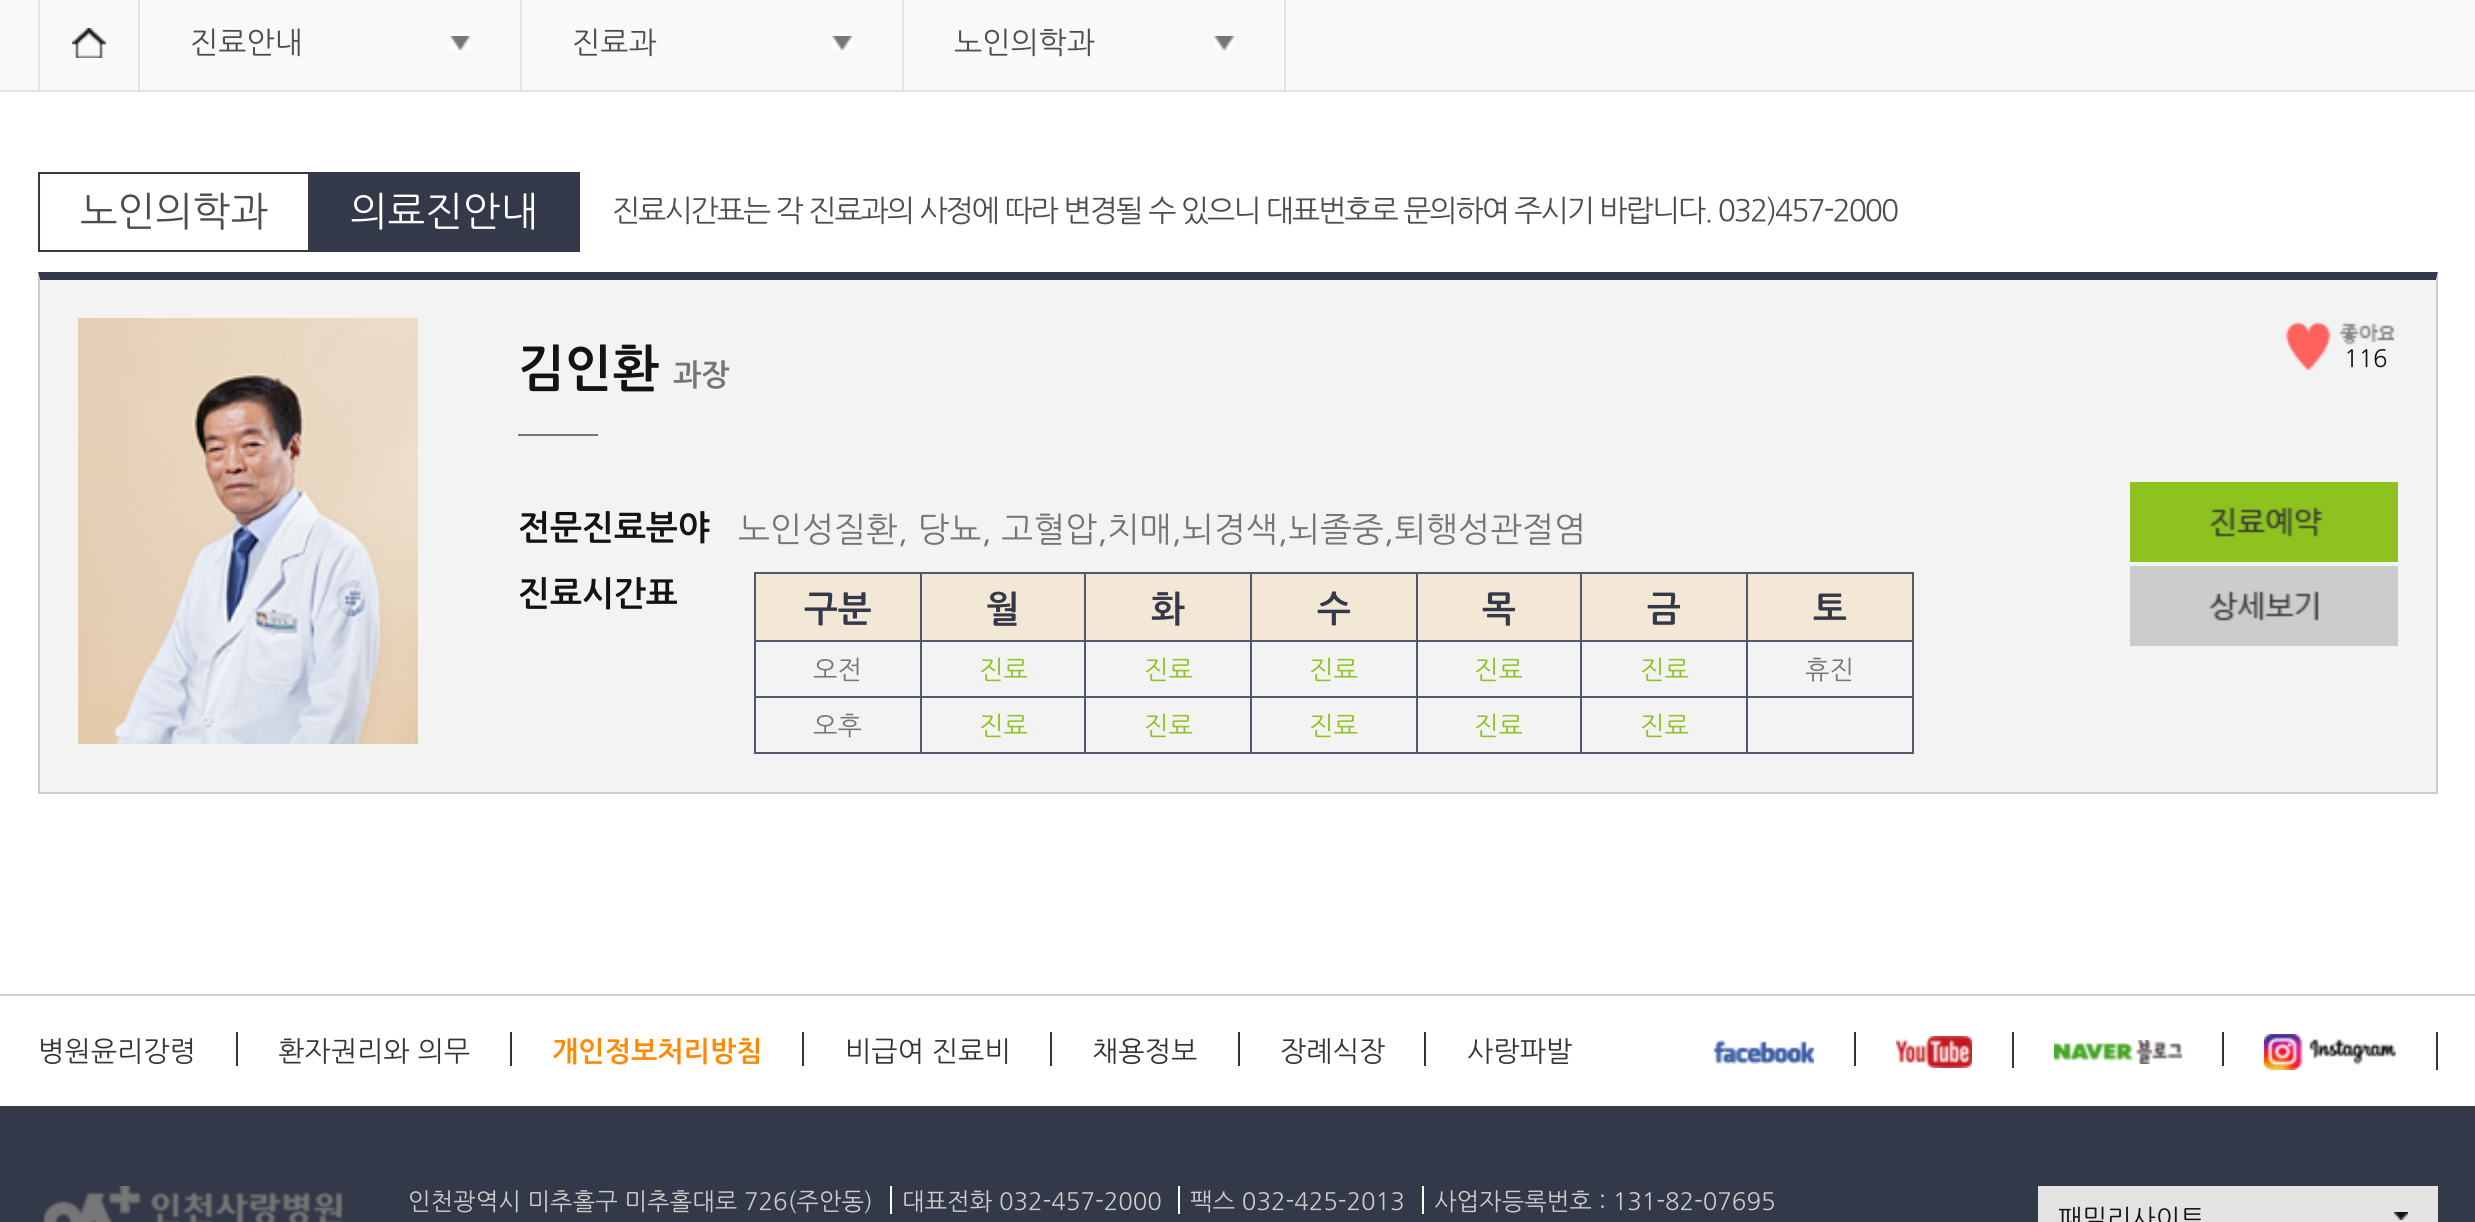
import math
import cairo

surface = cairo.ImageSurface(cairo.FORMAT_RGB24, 2475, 1222)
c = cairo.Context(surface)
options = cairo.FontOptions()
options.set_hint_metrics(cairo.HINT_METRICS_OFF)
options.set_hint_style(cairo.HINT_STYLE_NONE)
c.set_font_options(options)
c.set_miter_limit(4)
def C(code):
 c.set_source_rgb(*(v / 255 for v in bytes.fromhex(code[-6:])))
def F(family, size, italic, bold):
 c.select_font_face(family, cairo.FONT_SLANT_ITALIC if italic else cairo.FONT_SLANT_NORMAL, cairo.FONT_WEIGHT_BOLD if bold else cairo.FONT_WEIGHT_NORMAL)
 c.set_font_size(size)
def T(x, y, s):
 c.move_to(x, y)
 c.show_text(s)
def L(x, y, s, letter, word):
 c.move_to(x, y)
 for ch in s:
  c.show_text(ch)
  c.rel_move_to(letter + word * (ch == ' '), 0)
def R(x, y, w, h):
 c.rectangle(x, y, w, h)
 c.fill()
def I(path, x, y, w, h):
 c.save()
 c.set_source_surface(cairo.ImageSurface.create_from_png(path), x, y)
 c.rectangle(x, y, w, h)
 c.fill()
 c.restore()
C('ffffff')
c.paint()
C('faf9f9')
R(0,0,2475,90)
C('e3e3e3')
R(0,90,2475,2)
R(138,0,2,90)
R(38,0,2,90)
I('1.png',72,28,34,30)
I('2.png',450,36,20,14)
R(520,0,2,90)
F('NanumGothic',30,0,0)
C('4d4d4d')
T(190,52,'진료안내')
I('2.png',832,36,20,14)
C('e3e3e3')
R(902,0,2,90)
C('4d4d4d')
T(572,52,'진료과')
I('2.png',1214,36,20,14)
C('e3e3e3')
R(1284,0,2,90)
C('4d4d4d')
T(954,52,'노인의학과')
c.rectangle(39,173,270,78)
C('333949')
c.stroke()
F('NanumGothic',40,0,0)
C('4d4d4d')
T(80,224,'노인의학과')
C('333949')
R(310,172,270,80)
C('ffffff')
T(350,224,'의료진안내')
F('NanumGothic',30,0,0)
C('4d4d4d')
L(612,220,'진료시간표는 각 진료과의 사정에 따라 변경될 수 있으니 대표번호로 문의하여 주시기 바랍니다. 032)457-2000',-2,0)
C('f3f3f3')
R(40,280,2396,512)
C('333949')
c.new_path()
c.move_to(38,272)
c.line_to(2438,272)
c.line_to(2436,280)
c.line_to(40,280)
c.close_path()
c.fill()
C('cccccc')
c.new_path()
c.move_to(2438,272)
c.line_to(2438,794)
c.line_to(2436,792)
c.line_to(2436,280)
c.close_path()
c.fill()
R(38,792,2400,2)
c.new_path()
c.move_to(38,794)
c.line_to(38,272)
c.line_to(40,280)
c.line_to(40,792)
c.close_path()
c.fill()
I('3.png',78,318,340,426)
C('767676')
R(518,434,80,2)
F('NanumGothic',50,0,1)
C('131313')
T(518,384,'김인환')
F('NanumGothic',30,0,1)
C('767676')
T(673,384,'과장')
F('NanumGothic',34,0,1)
C('131313')
T(518,538,'전문진료분야')
F('NanumGothic',34,0,0)
C('767676')
T(738,540,'노인성질환, 당뇨, 고혈압,치매,뇌경색,뇌졸중,퇴행성관절염')
F('NanumGothic',34,0,1)
C('131313')
T(518,604,'진료시간표')
C('f2e8d5')
R(756,574,164,66)
C('51576d')
R(1746,572,168,2)
R(1746,640,168,2)
R(1746,696,168,2)
R(1912,696,2,58)
R(1746,752,168,2)
R(1746,696,2,58)
R(1580,696,168,2)
R(1746,640,2,58)
R(1580,640,168,2)
R(1746,572,2,70)
R(1580,572,168,2)
R(1580,752,168,2)
R(1580,696,2,58)
R(1416,696,166,2)
R(1580,640,2,58)
R(1416,640,166,2)
R(1580,572,2,70)
R(1416,572,166,2)
R(1416,752,166,2)
R(1416,696,2,58)
R(1250,696,168,2)
R(1416,640,2,58)
R(1250,640,168,2)
R(1416,572,2,70)
R(1250,572,168,2)
R(1250,752,168,2)
R(1250,696,2,58)
R(1084,696,168,2)
R(1250,640,2,58)
R(1084,640,168,2)
R(1250,572,2,70)
R(1084,572,168,2)
R(1084,752,168,2)
R(1084,696,2,58)
R(920,696,166,2)
R(1084,640,2,58)
R(920,640,166,2)
R(1084,572,2,70)
R(920,572,166,2)
R(920,752,166,2)
R(920,696,2,58)
R(754,696,168,2)
R(920,640,2,58)
R(754,640,168,2)
R(920,572,2,70)
R(754,572,168,2)
R(754,752,168,2)
R(754,696,2,58)
R(754,640,2,58)
R(754,572,2,70)
F('NanumGothic',36,0,1)
C('333949')
T(804,620,'구분')
C('f2e8d5')
R(922,574,162,66)
C('333949')
T(986,620,'월')
C('f2e8d5')
R(1086,574,164,66)
C('333949')
T(1151,620,'화')
C('f2e8d5')
R(1252,574,164,66)
C('333949')
T(1317,620,'수')
C('f2e8d5')
R(1418,574,162,66)
C('333949')
T(1482,620,'목')
C('f2e8d5')
R(1582,574,164,66)
C('333949')
T(1647,620,'금')
C('f2e8d5')
R(1748,574,164,66)
C('51576d')
R(1912,640,2,58)
R(1912,572,2,70)
C('333949')
T(1813,620,'토')
F('NanumGothic',26,0,0)
C('767676')
T(813,678,'오전')
C('8ec31f')
T(979,678,'진료')
T(1144,678,'진료')
T(1309,678,'진료')
T(1474,678,'진료')
T(1640,678,'진료')
C('767676')
T(1805,678,'휴진')
T(813,734,'오후')
C('8ec31f')
T(979,734,'진료')
T(1144,734,'진료')
T(1309,734,'진료')
T(1474,734,'진료')
T(1640,734,'진료')
I('4.png',2286,322,108,48)
F('NanumGothic',24,0,0)
C('131313')
T(2344,366,'116')
I('5.png',2130,482,268,80)
I('6.png',2130,566,268,80)
C('d0d0d0')
R(0,994,2475,2)
F('NanumGothic',28,0,0)
C('353535')
T(38,1060,'병원윤리강령')
R(236,1032,2,34)
T(278,1060,'환자권리와 의무')
R(510,1032,2,34)
F('NanumGothic',28,0,1)
C('ff8900')
T(552,1060,'개인정보처리방침')
C('353535')
R(802,1032,2,34)
F('NanumGothic',28,0,0)
T(845,1060,'비급여 진료비')
R(1050,1032,2,34)
T(1092,1060,'채용정보')
R(1238,1032,2,34)
T(1280,1060,'장례식장')
R(1424,1032,2,34)
T(1467,1060,'사랑파발')
R(1854,1032,2,34)
I('7.png',1714,1040,100,24)
R(2012,1032,2,36)
I('8.png',1896,1036,76,32)
R(2222,1032,2,34)
I('9.png',2054,1040,128,24)
R(2436,1032,2,38)
I('10.png',2264,1034,132,36)
C('333949')
R(0,1106,2475,116)
I('11.png',43,1186,300,36)
F('NanumGothic',24,0,0)
C('cccccc')
T(408,1209,'인천광역시 미추홀구 미추홀대로 726(주안동)')
T(902,1209,'대표전화 032-457-2000')
C('ffffff')
R(890,1186,2,28)
C('cccccc')
T(1190,1209,'팩스 032-425-2013')
C('ffffff')
R(1178,1186,2,28)
C('cccccc')
T(1434,1209,'사업자등록번호 : 131-82-07695')
C('ffffff')
R(1422,1186,2,28)
C('e3e3e3')
R(2038,1186,400,36)
I('12.png',2394,1212,14,8)
F('NanumGothic',26,0,0)
C('131313')
T(2058,1227,'패밀리사이트')
surface.write_to_png('o.png')
